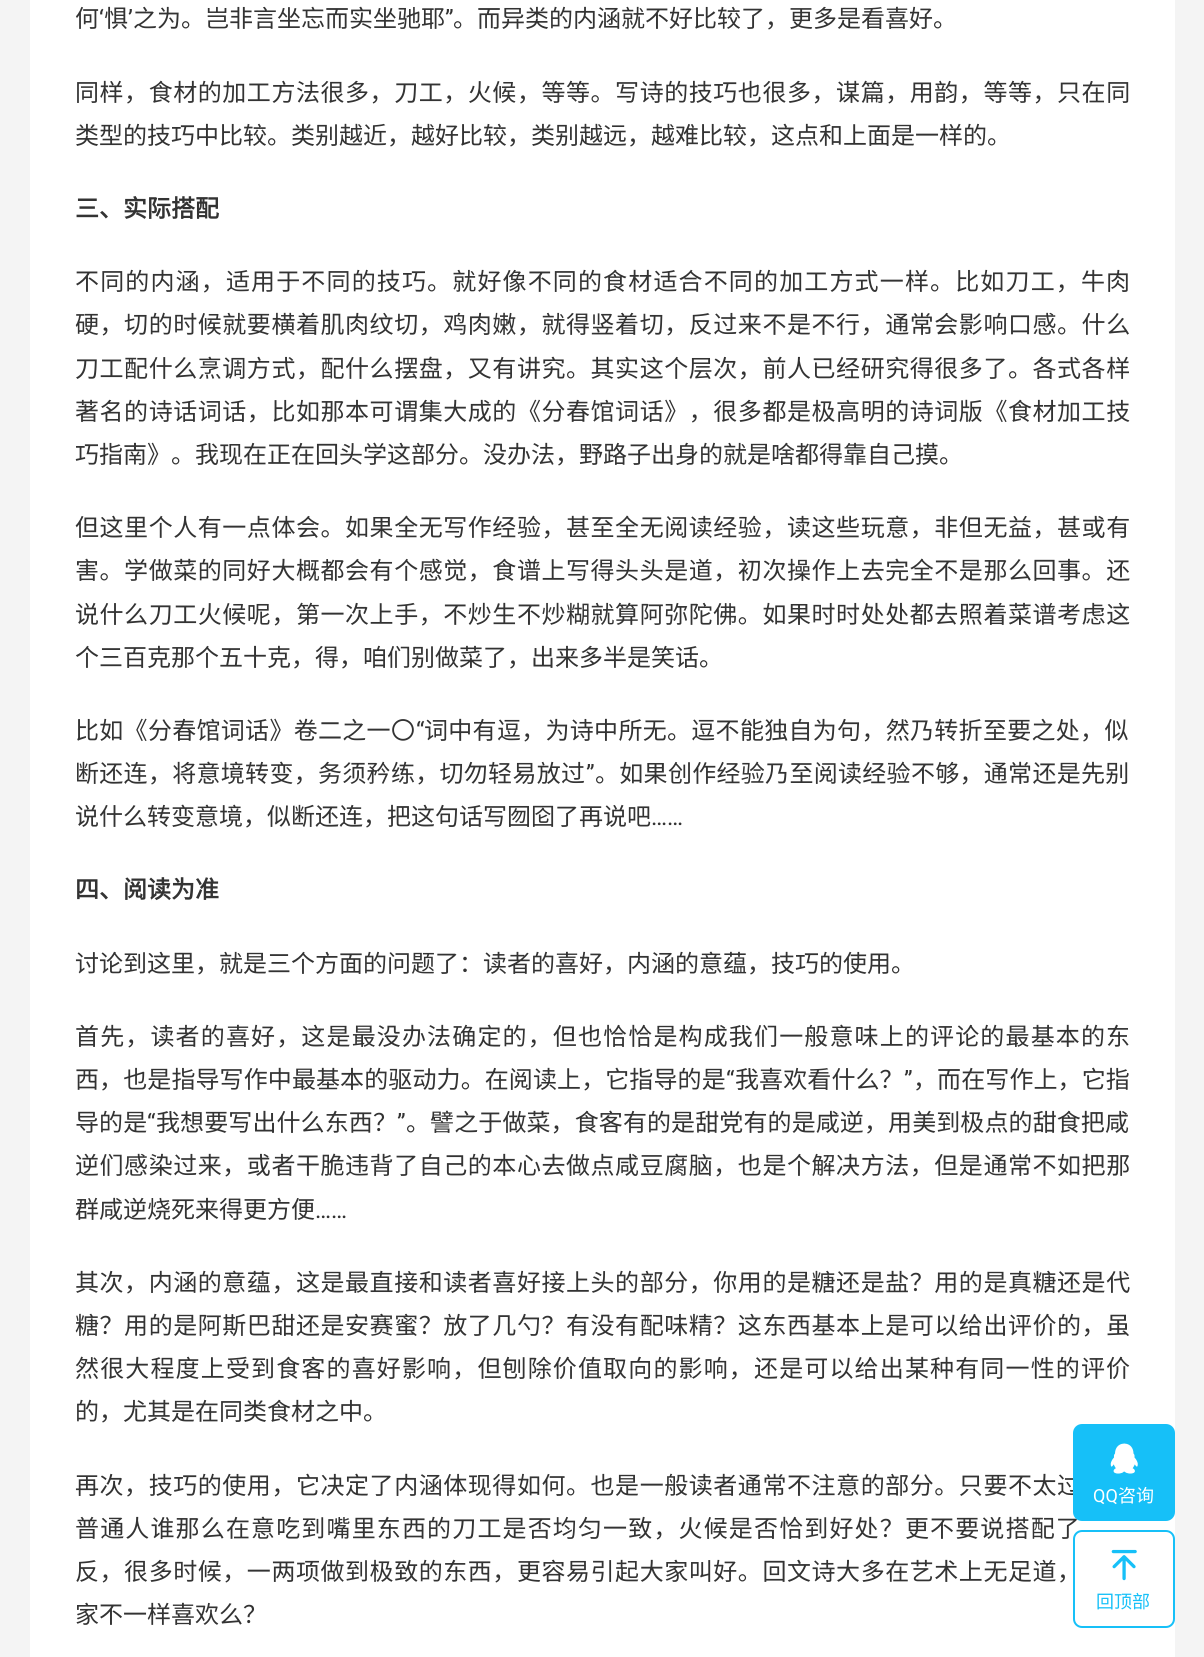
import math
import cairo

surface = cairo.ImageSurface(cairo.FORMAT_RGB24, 1204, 1657)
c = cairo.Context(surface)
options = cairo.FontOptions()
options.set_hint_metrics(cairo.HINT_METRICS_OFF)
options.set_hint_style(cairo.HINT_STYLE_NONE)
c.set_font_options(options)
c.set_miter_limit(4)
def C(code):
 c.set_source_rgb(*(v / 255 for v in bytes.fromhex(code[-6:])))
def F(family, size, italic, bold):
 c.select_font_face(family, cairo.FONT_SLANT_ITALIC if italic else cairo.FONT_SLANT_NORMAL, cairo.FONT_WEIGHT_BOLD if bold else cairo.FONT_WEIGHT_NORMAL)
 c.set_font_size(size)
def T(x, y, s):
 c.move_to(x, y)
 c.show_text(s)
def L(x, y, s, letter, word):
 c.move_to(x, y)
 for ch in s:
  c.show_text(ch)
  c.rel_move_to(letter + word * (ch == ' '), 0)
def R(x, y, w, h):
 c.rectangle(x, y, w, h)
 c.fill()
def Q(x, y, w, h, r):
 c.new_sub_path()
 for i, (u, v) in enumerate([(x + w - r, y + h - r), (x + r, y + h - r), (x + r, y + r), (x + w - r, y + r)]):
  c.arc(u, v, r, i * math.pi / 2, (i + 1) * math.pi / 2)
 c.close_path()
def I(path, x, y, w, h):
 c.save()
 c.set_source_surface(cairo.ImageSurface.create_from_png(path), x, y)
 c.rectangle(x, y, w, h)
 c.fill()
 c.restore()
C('f4f4f4')
c.paint()
C('ffffff')
R(30,0,1145,1657)
F('Noto Sans CJK SC',24,0,0)
C('333333')
T(75,27,'何')
F('Roboto',24,0,0)
T(99,27,'‘')
F('Noto Sans CJK SC',24,0,0)
T(104,27,'惧')
F('Roboto',24,0,0)
T(128,27,'’')
F('Noto Sans CJK SC',24,0,0)
T(133,27,'之为。岂非言坐忘而实坐驰耶')
F('Roboto',24,0,0)
T(445,27,'”')
F('Noto Sans CJK SC',24,0,0)
T(453,27,'。而异类的内涵就不好比较了，更多是看喜好。')
L(75,101,'同样，食材的加工方法很多，刀工，火候，等等。写诗的技巧也很多，谋篇，用韵，等等，只在同',.55,0)
T(75,144,'类型的技巧中比较。类别越近，越好比较，类别越远，越难比较，这点和上面是一样的。')
F('Noto Sans CJK SC',24,0,1)
T(75,217,'三、实际搭配')
F('Noto Sans CJK SC',24,0,0)
L(75,290,'不同的内涵，适用于不同的技巧。就好像不同的食材适合不同的加工方式一样。比如刀工，牛肉',1.15,0)
L(75,333,'硬，切的时候就要横着肌肉纹切，鸡肉嫩，就得竖着切，反过来不是不行，通常会影响口感。什么',.55,0)
L(75,377,'刀工配什么烹调方式，配什么摆盘，又有讲究。其实这个层次，前人已经研究得很多了。各式各样',.55,0)
L(75,420,'著名的诗话词话，比如那本可谓集大成的《分春馆词话》，很多都是极高明的诗词版《食材加工技',.55,0)
T(75,463,'巧指南》。我现在正在回头学这部分。没办法，野路子出身的就是啥都得靠自己摸。')
L(75,536,'但这里个人有一点体会。如果全无写作经验，甚至全无阅读经验，读这些玩意，非但无益，甚或有',.55,0)
L(75,579,'害。学做菜的同好大概都会有个感觉，食谱上写得头头是道，初次操作上去完全不是那么回事。还',.55,0)
L(75,623,'说什么刀工火候呢，第一次上手，不炒生不炒糊就算阿弥陀佛。如果时时处处都去照着菜谱考虑这',.55,0)
T(75,666,'个三百克那个五十克，得，咱们别做菜了，出来多半是笑话。')
L(75,739,'比如《分春馆词话》卷二之一〇',.3,0)
F('Roboto',24,0,0)
L(416,739,'“',.3,0)
F('Noto Sans CJK SC',24,0,0)
L(424,739,'词中有逗，为诗中所无。逗不能独自为句，然乃转折至要之处，似',.3,0)
L(75,782,'断还连，将意境转变，务须矜练，切勿轻易放过',.3,0)
F('Roboto',24,0,0)
L(586,782,'”',.3,0)
F('Noto Sans CJK SC',24,0,0)
L(595,782,'。如果创作经验乃至阅读经验不够，通常还是先别',.3,0)
T(75,825,'说什么转变意境，似断还连，把这句话写囫囵了再说吧')
F('Roboto',24,0,0)
T(651,825,'……')
F('Noto Sans CJK SC',24,0,1)
T(75,898,'四、阅读为准')
F('Noto Sans CJK SC',24,0,0)
T(75,972,'讨论到这里，就是三个方面的问题了：读者的喜好，内涵的意蕴，技巧的使用。')
L(75,1045,'首先，读者的喜好，这是最没办法确定的，但也恰恰是构成我们一般意味上的评论的最基本的东',1.15,0)
L(75,1088,'西，也是指导写作中最基本的驱动力。在阅读上，它指导的是',.1,0)
F('Roboto',24,0,0)
L(726,1088,'“',.1,0)
F('Noto Sans CJK SC',24,0,0)
L(735,1088,'我喜欢看什么？',.1,0)
F('Roboto',24,0,0)
L(904,1088,'”',.1,0)
F('Noto Sans CJK SC',24,0,0)
L(913,1088,'，而在写作上，它指',.1,0)
L(75,1131,'导的是',.1,0)
F('Roboto',24,0,0)
L(147,1131,'“',.1,0)
F('Noto Sans CJK SC',24,0,0)
L(156,1131,'我想要写出什么东西？',.1,0)
F('Roboto',24,0,0)
L(397,1131,'”',.1,0)
F('Noto Sans CJK SC',24,0,0)
L(406,1131,'。譬之于做菜，食客有的是甜党有的是咸逆，用美到极点的甜食把咸',.1,0)
L(75,1174,'逆们感染过来，或者干脆违背了自己的本心去做点咸豆腐脑，也是个解决方法，但是通常不如把那',.55,0)
T(75,1218,'群咸逆烧死来得更方便')
F('Roboto',24,0,0)
T(315,1218,'……')
F('Noto Sans CJK SC',24,0,0)
L(75,1291,'其次，内涵的意蕴，这是最直接和读者喜好接上头的部分，你用的是糖还是盐？用的是真糖还是代',.55,0)
L(75,1334,'糖？用的是阿斯巴甜还是安赛蜜？放了几勺？有没有配味精？这东西基本上是可以给出评价的，虽',.55,0)
L(75,1377,'然很大程度上受到食客的喜好影响，但刨除价值取向的影响，还是可以给出某种有同一性的评价',1.15,0)
T(75,1420,'的，尤其是在同类食材之中。')
L(75,1494,'再次，技巧的使用，它决定了内涵体现得如何。也是一般读者通常不注意的部分。只要不太过',.55,0)
L(75,1537,'普通人谁那么在意吃到嘴里东西的刀工是否均匀一致，火候是否恰到好处？更不要说搭配了',1.15,0)
L(75,1580,'反，很多时候，一两项做到极致的东西，更容易引起大家叫好。回文诗大多在艺术上无足道，',.55,0)
T(75,1623,'家不一样喜欢么？')
C('16c0f8')
Q(1074,1425,100,95,8)
c.fill_preserve()
c.stroke()
I('1.png',1110,1443,28,31)
F('Roboto',18,0,0)
C('ffffff')
T(1093,1502,'QQ')
F('Noto Sans CJK SC',18,0,0)
T(1118,1502,'咨询')
Q(1074,1531,100,96,8)
C('16c0f8')
c.stroke()
I('2.png',1111,1549,26,32)
T(1096,1608,'回顶部')
surface.write_to_png('o.png')
